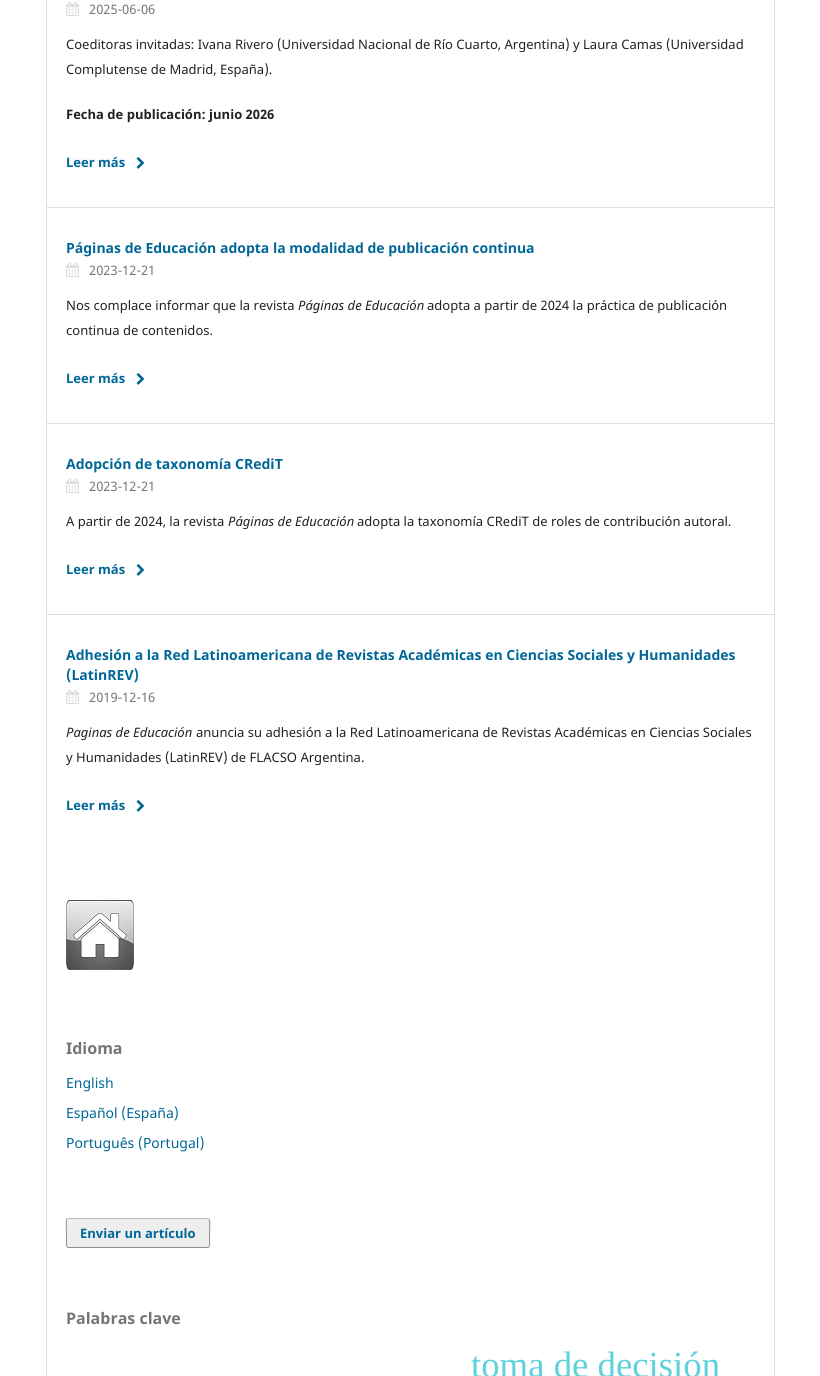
import math
import cairo

surface = cairo.ImageSurface(cairo.FORMAT_RGB24, 820, 1376)
c = cairo.Context(surface)
options = cairo.FontOptions()
options.set_hint_metrics(cairo.HINT_METRICS_OFF)
options.set_hint_style(cairo.HINT_STYLE_NONE)
c.set_font_options(options)
c.set_miter_limit(4)
def C(code):
 c.set_source_rgb(*(v / 255 for v in bytes.fromhex(code[-6:])))
def F(family, size, italic, bold):
 c.select_font_face(family, cairo.FONT_SLANT_ITALIC if italic else cairo.FONT_SLANT_NORMAL, cairo.FONT_WEIGHT_BOLD if bold else cairo.FONT_WEIGHT_NORMAL)
 c.set_font_size(size)
def T(x, y, s):
 c.move_to(x, y)
 c.show_text(s)
def R(x, y, w, h):
 c.rectangle(x, y, w, h)
 c.fill()
def Q(x, y, w, h, r):
 c.new_sub_path()
 for i, (u, v) in enumerate([(x + w - r, y + h - r), (x + r, y + h - r), (x + r, y + r), (x + w - r, y + r)]):
  c.arc(u, v, r, i * math.pi / 2, (i + 1) * math.pi / 2)
 c.close_path()
def I(path, x, y, w, h):
 c.save()
 c.set_source_surface(cairo.ImageSurface.create_from_png(path), x, y)
 c.rectangle(x, y, w, h)
 c.fill()
 c.restore()
C('ffffff')
c.paint()
C('dddddd')
R(46,207,728,1)
R(46,423,728,1)
R(46,614,728,1)
R(46,0,1,1376)
I('1.png',66,2,13,14)
F('Noto Sans',13.02,0,0)
C('757575')
T(89,14,'2025-06-06')
C('212121')
T(66,49,'Coeditoras invitadas: Ivana Rivero (Universidad Nacional de Río Cuarto, Argentina) y Laura Camas (Universidad')
T(66,74,'Complutense de Madrid, España).')
F('Noto Sans',13.02,0,1)
T(66,119,'Fecha de publicación: junio 2026')
C('006798')
T(66,167,'Leer más')
I('2.png',136,157,9,12)
F('Noto Sans',14,0,1)
T(66,253,'Páginas de Educación adopta la modalidad de publicación continua')
I('1.png',66,263,13,14)
F('Noto Sans',13.02,0,0)
C('757575')
T(89,275,'2023-12-21')
C('212121')
T(66,310,'Nos complace informar que la revista')
F('Noto Sans',13.02,1,0)
T(298,310,'Páginas de Educación')
F('Noto Sans',13.02,0,0)
T(427,310,'adopta a partir de 2024 la práctica de publicación')
T(66,335,'continua de contenidos.')
F('Noto Sans',13.02,0,1)
C('006798')
T(66,383,'Leer más')
I('2.png',136,373,9,12)
F('Noto Sans',14,0,1)
T(66,469,'Adopción de taxonomía CRediT')
I('1.png',66,479,13,14)
F('Noto Sans',13.02,0,0)
C('757575')
T(89,491,'2023-12-21')
C('212121')
T(66,526,'A partir de 2024, la revista')
F('Noto Sans',13.02,1,0)
T(228,526,'Páginas de Educación')
F('Noto Sans',13.02,0,0)
T(357,526,'adopta la taxonomía CRediT de roles de contribución autoral.')
F('Noto Sans',13.02,0,1)
C('006798')
T(66,574,'Leer más')
I('2.png',136,564,9,12)
F('Noto Sans',14,0,1)
T(66,660,'Adhesión a la Red Latinoamericana de Revistas Académicas en Ciencias Sociales y Humanidades')
T(66,680,'(LatinREV)')
I('1.png',66,690,13,14)
F('Noto Sans',13.02,0,0)
C('757575')
T(89,702,'2019-12-16')
F('Noto Sans',13.02,1,0)
C('212121')
T(66,737,'Paginas de Educación')
F('Noto Sans',13.02,0,0)
T(196,737,'anuncia su adhesión a la Red Latinoamericana de Revistas Académicas en Ciencias Sociales')
T(66,762,'y Humanidades (LatinREV) de FLACSO Argentina.')
F('Noto Sans',13.02,0,1)
C('006798')
T(66,810,'Leer más')
I('2.png',136,800,9,12)
C('dddddd')
R(774,0,1,1376)
I('3.png',66,900,68,70)
F('Noto Sans',16,0,1)
C('757575')
T(66,1054,'Idioma')
F('Noto Sans',14,0,0)
C('006798')
T(66,1088,'English')
T(66,1118,'Español (España)')
T(66,1148,'Português (Portugal)')
C('eeeeee')
Q(66,1218,144,30,3)
c.fill()
c.new_path()
c.move_to(67,1219)
c.line_to(69,1218.5)
c.line_to(207,1218.5)
c.line_to(209,1219)
C('bbbbbb')
c.set_line_width(1)
c.stroke()
c.new_path()
c.move_to(209,1219)
c.curve_to(210.5,1221,209.5,1230.5,209.5,1233)
c.line_to(209.5,1241)
c.curve_to(209.5,1243,210.5,1247.5,207,1247.5)
c.line_to(69,1247.5)
c.curve_to(65.5,1247.5,66.5,1243,66.5,1241)
c.line_to(66.5,1233)
c.curve_to(66.5,1230.5,65.5,1221,67,1219)
c.set_source_rgba(0,0,0,0.4)
c.stroke()
F('Noto Sans',13.02,0,1)
C('006798')
T(80,1238,'Enviar un artículo')
F('Noto Sans',16,0,1)
C('757575')
T(66,1324,'Palabras clave')
F('Liberation Serif',36.75,0,0)
C('5dd2dd')
T(471,1377,'toma de decisión')
surface.write_to_png('o.png')
